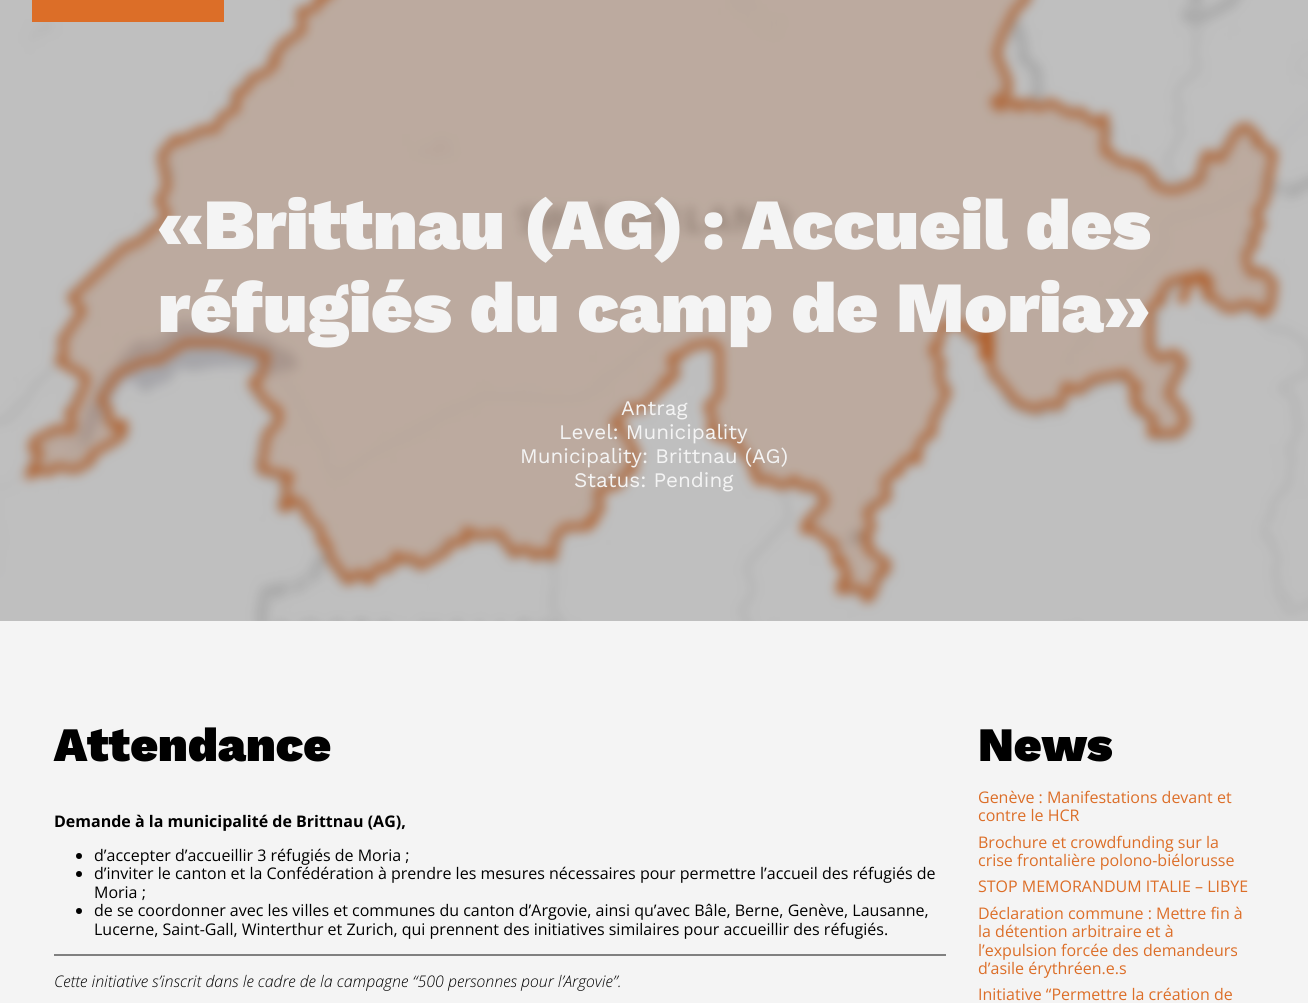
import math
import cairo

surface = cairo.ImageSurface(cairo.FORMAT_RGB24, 1308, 1003)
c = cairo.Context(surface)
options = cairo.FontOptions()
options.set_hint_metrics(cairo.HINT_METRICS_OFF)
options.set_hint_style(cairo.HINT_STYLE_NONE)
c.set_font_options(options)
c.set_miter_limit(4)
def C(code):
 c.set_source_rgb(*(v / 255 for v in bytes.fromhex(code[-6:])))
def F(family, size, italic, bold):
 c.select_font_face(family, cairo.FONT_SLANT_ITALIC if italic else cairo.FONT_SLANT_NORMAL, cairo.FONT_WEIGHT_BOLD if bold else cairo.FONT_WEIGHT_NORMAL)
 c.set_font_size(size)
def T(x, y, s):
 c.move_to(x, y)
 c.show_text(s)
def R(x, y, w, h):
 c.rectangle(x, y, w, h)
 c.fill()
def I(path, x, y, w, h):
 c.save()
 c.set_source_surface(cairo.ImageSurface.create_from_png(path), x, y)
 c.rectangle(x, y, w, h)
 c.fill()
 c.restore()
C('f4f4f4')
c.paint()
I('1.png',0,0,1308,621)
C('dc6e28')
R(32,0,192,22)
F('Work Sans Black',72,0,0)
C('f4f4f4')
T(157,249,'«Brittnau (AG) : Accueil des')
T(158,332,'réfugiés du camp de Moria»')
F('Work Sans',20.75,0,0)
T(621,415,'Antrag')
T(559,439,'Level: Municipality')
T(520,463,'Municipality: Brittnau (AG)')
T(574,487,'Status: Pending')
F('Work Sans Black',48,0,0)
C('000000')
T(54,761,'Attendance')
F('Open Sans',16,0,1)
T(54,827,'Demande à la municipalité de Brittnau (AG),')
c.new_path()
c.arc(79,856,3,0,2 * math.pi)
c.fill()
F('Open Sans',16,0,0)
T(94,861,'d’accepter d’accueillir 3 réfugiés de Moria ;')
c.new_path()
c.arc(79,874,3,0,2 * math.pi)
c.fill()
T(94,879,'d’inviter le canton et la Confédération à prendre les mesures nécessaires pour permettre l’accueil des réfugiés de')
T(94,898,'Moria ;')
c.new_path()
c.arc(79,911,3,0,2 * math.pi)
c.fill()
T(94,916,'de se coordonner avec les villes et communes du canton d’Argovie, ainsi qu’avec Bâle, Berne, Genève, Lausanne,')
T(94,935,'Lucerne, Saint-Gall, Winterthur et Zurich, qui prennent des initiatives similaires pour accueillir des réfugiés.')
C('808080')
R(54,954,892,2)
F('Open Sans Light',16,1,0)
C('000000')
T(54,987,'Cette initiative s’inscrit dans le cadre de la campagne “500 personnes pour l’Argovie”.')
F('Work Sans Black',48,0,0)
T(978,761,'News')
F('Open Sans',16,0,0)
C('dc6e28')
T(978,803,'Genève : Manifestations devant et')
T(978,821,'contre le HCR')
T(978,848,'Brochure et crowdfunding sur la')
T(978,866,'crise frontalière polono-biélorusse')
T(978,892,'STOP MEMORANDUM ITALIE – LIBYE')
T(978,919,'Déclaration commune : Mettre fin à')
T(978,937,'la détention arbitraire et à')
T(978,956,'l’expulsion forcée des demandeurs')
T(978,974,'d’asile érythréen.e.s')
T(978,1000,'Initiative “Permettre la création de')
surface.write_to_png('o.png')
